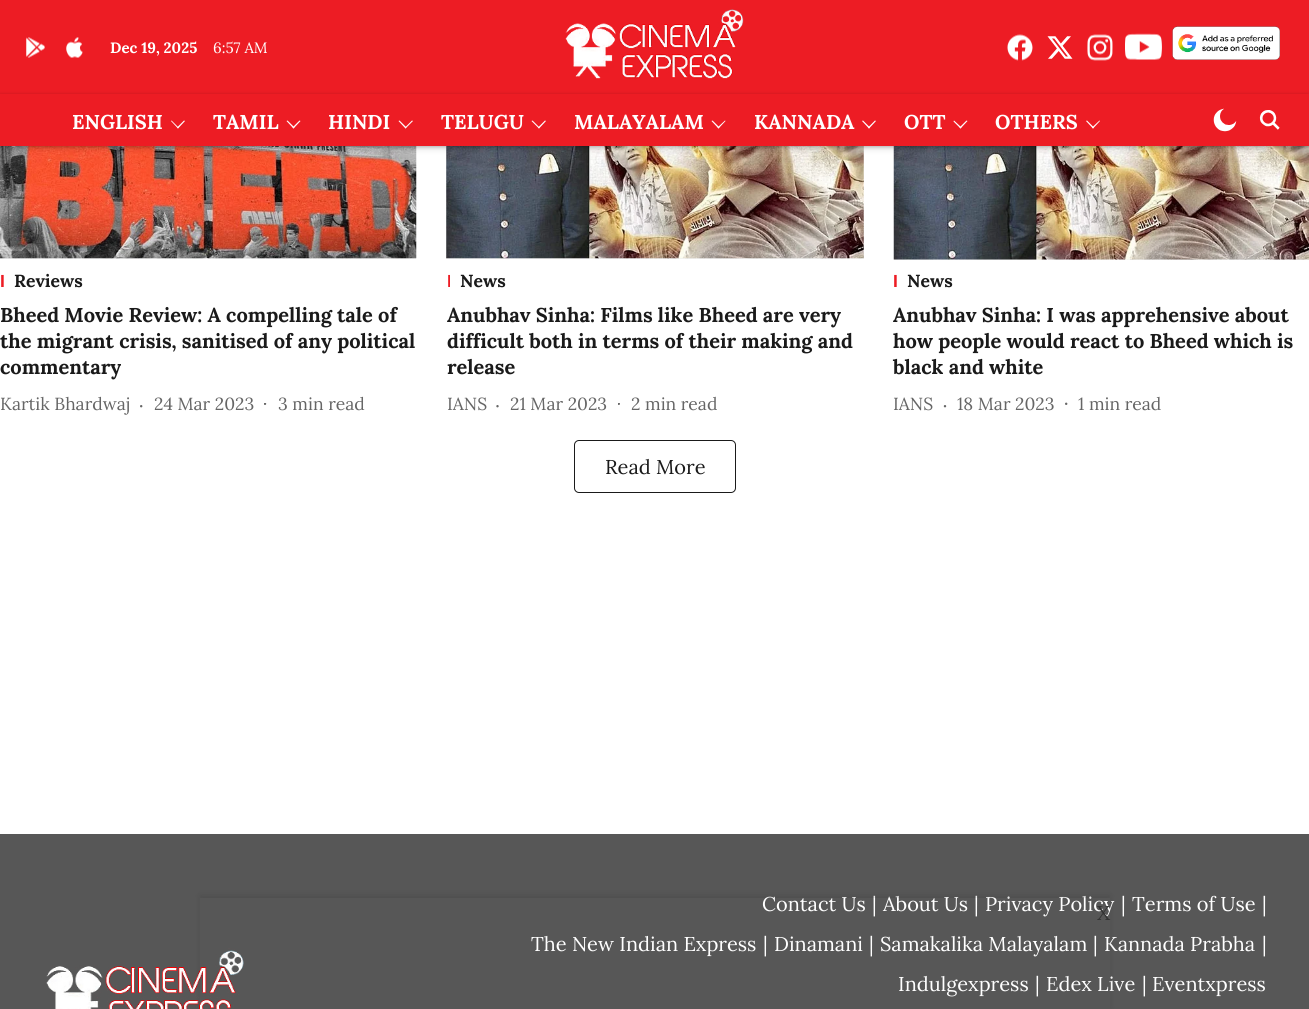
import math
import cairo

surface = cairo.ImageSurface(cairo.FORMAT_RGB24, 1309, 1009)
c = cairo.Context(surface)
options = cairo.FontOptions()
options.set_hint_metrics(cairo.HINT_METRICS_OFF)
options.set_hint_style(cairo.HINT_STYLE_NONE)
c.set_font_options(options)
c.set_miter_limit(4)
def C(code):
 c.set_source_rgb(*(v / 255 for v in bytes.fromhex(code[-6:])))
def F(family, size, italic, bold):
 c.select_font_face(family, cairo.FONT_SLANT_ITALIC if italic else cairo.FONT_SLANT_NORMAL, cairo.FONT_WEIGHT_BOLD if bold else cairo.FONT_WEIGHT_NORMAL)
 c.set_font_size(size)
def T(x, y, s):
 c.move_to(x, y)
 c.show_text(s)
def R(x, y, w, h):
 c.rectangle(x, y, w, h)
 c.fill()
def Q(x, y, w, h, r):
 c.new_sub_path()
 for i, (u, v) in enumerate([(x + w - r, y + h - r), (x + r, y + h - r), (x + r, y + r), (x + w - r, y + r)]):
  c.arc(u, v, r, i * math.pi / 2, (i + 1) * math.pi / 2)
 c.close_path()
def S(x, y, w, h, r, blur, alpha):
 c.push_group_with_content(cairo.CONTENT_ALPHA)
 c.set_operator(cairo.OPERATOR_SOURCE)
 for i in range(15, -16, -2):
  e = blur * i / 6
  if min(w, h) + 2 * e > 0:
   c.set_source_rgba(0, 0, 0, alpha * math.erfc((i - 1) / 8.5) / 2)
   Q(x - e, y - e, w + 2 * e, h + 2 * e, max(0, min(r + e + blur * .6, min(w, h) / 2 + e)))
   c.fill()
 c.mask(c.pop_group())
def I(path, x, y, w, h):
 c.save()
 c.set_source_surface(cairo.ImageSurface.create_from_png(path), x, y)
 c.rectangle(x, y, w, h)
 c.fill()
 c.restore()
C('ffffff')
c.paint()
C('f0f0f0')
R(0,258,416,1)
I('11.png',0,146,417,113)
R(446,146,418,113)
I('12.png',446,146,418,113)
R(894,259,415,1)
I('13.png',893,146,416,114)
C('000000')
S(0,1,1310,147,0,4,.1)
C('ed1c24')
R(0,0,1309,94)
I('1.png',26,37,19,21)
I('2.png',66,37,17,21)
F('Lora',15,0,1)
C('ffffff')
T(110,53,'Dec 19, 2025')
F('Lora',15,0,0)
T(213,53,'6:57 AM')
I('3.png',565,9,179,70)
I('4.png',1007,34,26,27)
I('5.png',1047,36,26,23)
I('6.png',1087,34,26,27)
I('7.png',1125,33,37,27)
I('8.png',1172,26,108,34)
C('000000')
S(0,96,1308,50,0,2.5,.39)
C('ed1c24')
R(0,94,1309,52)
F('Lora',20,0,1)
C('ffffff')
T(72,129,'ENGLISH')
c.new_path()
c.move_to(184,120.5)
c.line_to(185,121)
c.line_to(178,128.5)
c.line_to(177,127.5)
c.close_path()
c.fill()
c.new_path()
c.move_to(171.5,120.5)
c.line_to(178.5,127.5)
c.line_to(178,128.5)
c.line_to(171,121)
c.close_path()
c.fill()
T(213,129,'TAMIL')
c.new_path()
c.move_to(299.5,120.5)
c.line_to(300.5,121)
c.line_to(293.5,128.5)
c.line_to(292.5,127.5)
c.close_path()
c.fill()
c.new_path()
c.move_to(287.5,120.5)
c.line_to(294.5,127.5)
c.line_to(293.5,128.5)
c.line_to(286.5,121)
c.close_path()
c.fill()
T(328,129,'HINDI')
c.new_path()
c.move_to(412,120.5)
c.line_to(413,121)
c.line_to(405.5,128.5)
c.line_to(405,127.5)
c.close_path()
c.fill()
c.new_path()
c.move_to(399.5,120.5)
c.line_to(406.5,127.5)
c.line_to(405.5,128.5)
c.line_to(398.5,121)
c.close_path()
c.fill()
T(441,129,'TELUGU')
c.new_path()
c.move_to(545,120.5)
c.line_to(546,121)
c.line_to(539,128.5)
c.line_to(538,127.5)
c.close_path()
c.fill()
c.new_path()
c.move_to(532.5,120.5)
c.line_to(539.5,127.5)
c.line_to(539,128.5)
c.line_to(531.5,121)
c.close_path()
c.fill()
T(574,129,'MALAYALAM')
c.new_path()
c.move_to(725,120.5)
c.line_to(725.5,121)
c.line_to(718.5,128.5)
c.line_to(717.5,127.5)
c.close_path()
c.fill()
c.new_path()
c.move_to(712.5,120.5)
c.line_to(719.5,127.5)
c.line_to(718.5,128.5)
c.line_to(711.5,121)
c.close_path()
c.fill()
T(754,129,'KANNADA')
c.new_path()
c.move_to(875,120.5)
c.line_to(876,121)
c.line_to(869,128.5)
c.line_to(868,127.5)
c.close_path()
c.fill()
c.new_path()
c.move_to(863,120.5)
c.line_to(870,127.5)
c.line_to(869,128.5)
c.line_to(862,121)
c.close_path()
c.fill()
T(904,129,'OTT')
c.new_path()
c.move_to(966.5,120.5)
c.line_to(967.5,121)
c.line_to(960.5,128.5)
c.line_to(959.5,127.5)
c.close_path()
c.fill()
c.new_path()
c.move_to(954,120.5)
c.line_to(961.5,127.5)
c.line_to(960.5,128.5)
c.line_to(953.5,121.5)
c.close_path()
c.fill()
T(995,129,'OTHERS')
c.new_path()
c.move_to(1099.5,120.5)
c.line_to(1100,121)
c.line_to(1093,128.5)
c.line_to(1092,127.5)
c.close_path()
c.fill()
c.new_path()
c.move_to(1087,120.5)
c.line_to(1094,127.5)
c.line_to(1093,128.5)
c.line_to(1086,121)
c.close_path()
c.fill()
I('9.png',1213,108,24,24)
I('10.png',1259,110,21,20)
F('Liberation Sans',17.5,0,1)
C('ed1c24')
T(0,287,'I')
F('Lora',17.5,0,1)
C('1a1a1a')
T(14,287,'Reviews')
F('Lora',20,0,1)
T(0,322,'Bheed Movie Review: A compelling tale of')
T(0,348,'the migrant crisis, sanitised of any political')
T(0,374,'commentary')
F('Lora',17.5,0,0)
C('666666')
T(0,410,'Kartik Bhardwaj')
c.new_path()
c.arc(141.2,406.2,1.2,0,2 * math.pi)
c.fill()
T(154,410,'24 Mar 2023')
c.save()
c.rectangle(264,403,4,4)
c.clip()
c.arc(265,403.8,1.2,0,2 * math.pi)
c.fill()
c.restore()
T(278,410,'3 min read')
c.save()
c.rectangle(446,269,4,22)
c.clip()
F('Liberation Sans',17.5,0,1)
C('ed1c24')
T(447,287,'I')
c.restore()
F('Lora',17.5,0,1)
C('1a1a1a')
T(460,287,'News')
F('Lora',20,0,1)
T(447,322,'Anubhav Sinha: Films like Bheed are very')
T(447,348,'difficult both in terms of their making and')
T(447,374,'release')
F('Lora',17.5,0,0)
C('666666')
T(447,410,'IANS')
c.new_path()
c.arc(497.5,406.2,1.2,0,2 * math.pi)
c.fill()
T(510,410,'21 Mar 2023')
c.save()
c.rectangle(618,403,4,4)
c.clip()
c.arc(618.8,403.8,1.2,0,2 * math.pi)
c.fill()
c.restore()
T(631,410,'2 min read')
F('Liberation Sans',17.5,0,1)
C('ed1c24')
T(893,287,'I')
F('Lora',17.5,0,1)
C('1a1a1a')
T(907,287,'News')
F('Lora',20,0,1)
T(893,322,'Anubhav Sinha: I was apprehensive about')
T(893,348,'how people would react to Bheed which is')
T(893,374,'black and white')
F('Lora',17.5,0,0)
C('666666')
T(893,410,'IANS')
c.new_path()
c.arc(945,406.2,1.2,0,2 * math.pi)
c.fill()
T(957,410,'18 Mar 2023')
c.new_path()
c.arc(1066.2,403.8,1.2,0,2 * math.pi)
c.fill()
T(1078,410,'1 min read')
Q(574.5,440.5,161,52,4.5)
C('1a1a1a')
c.set_line_width(1)
c.stroke()
F('Lora',20,0,0)
T(605,474,'Read More')
C('575757')
R(0,834,1309,175)
I('14.png',46,948,198,61)
C('ffffff')
T(762,911,'Contact Us')
T(872,911,'|')
T(883,911,'About Us')
T(974,911,'|')
T(985,911,'Privacy Policy')
T(1121,911,'|')
T(1132,911,'Terms of Use')
T(1262,911,'|')
T(531,951,'The New Indian Express')
T(763,951,'|')
T(774,951,'Dinamani')
T(869,951,'|')
T(880,951,'Samakalika Malayalam')
T(1093,951,'|')
T(1104,951,'Kannada Prabha')
T(1262,951,'|')
T(898,991,'Indulgexpress')
T(1035,991,'|')
T(1046,991,'Edex Live')
T(1142,991,'|')
T(1152,991,'Eventxpress')
c.save()
c.set_fill_rule(cairo.FILL_RULE_EVEN_ODD)
c.new_path()
c.move_to(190,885)
c.line_to(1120,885)
c.line_to(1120,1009)
c.line_to(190,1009)
c.close_path()
c.move_to(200,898)
c.line_to(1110,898)
c.line_to(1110,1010)
c.line_to(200,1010)
c.close_path()
c.clip()
C('000000')
S(200,895,910,113,0,3,.1)
c.restore()
C('333333')
T(1097,920,'X')
surface.write_to_png('o.png')
